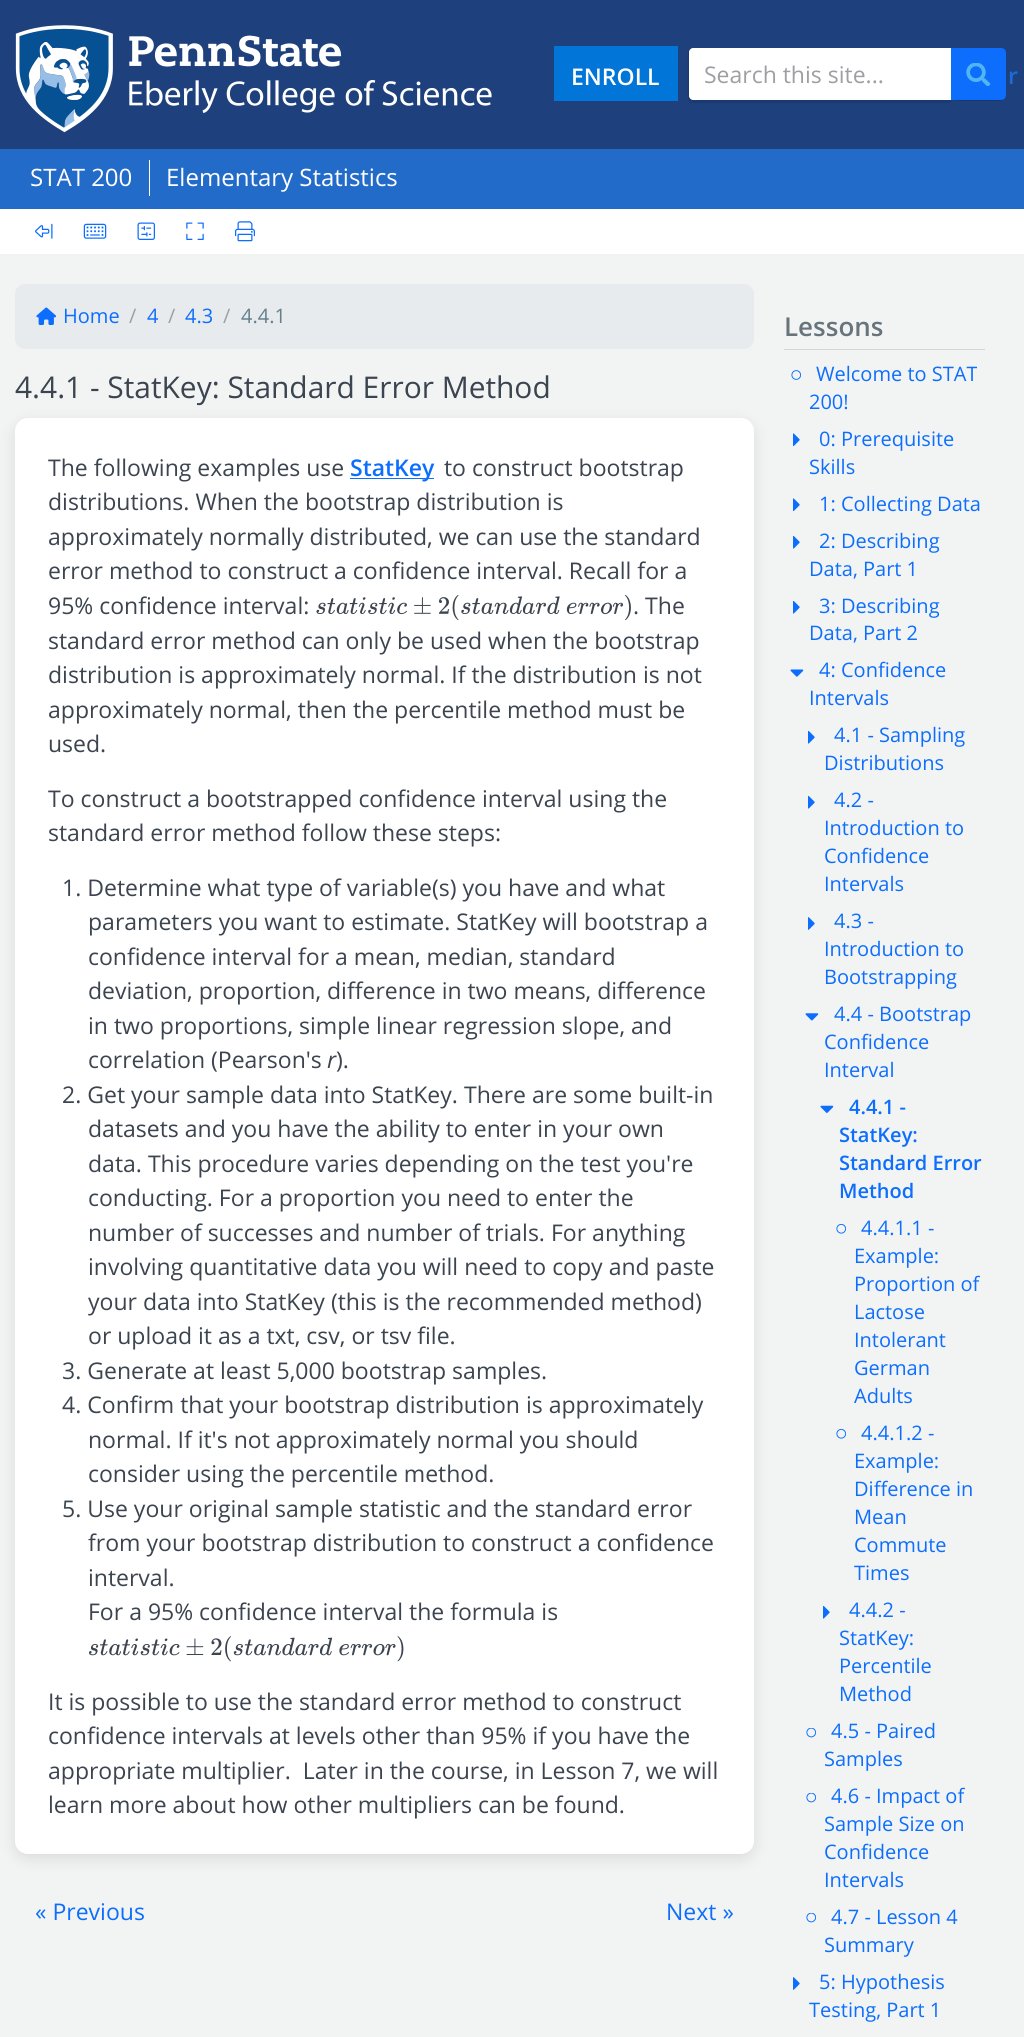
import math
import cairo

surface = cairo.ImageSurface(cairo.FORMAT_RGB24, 1024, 2037)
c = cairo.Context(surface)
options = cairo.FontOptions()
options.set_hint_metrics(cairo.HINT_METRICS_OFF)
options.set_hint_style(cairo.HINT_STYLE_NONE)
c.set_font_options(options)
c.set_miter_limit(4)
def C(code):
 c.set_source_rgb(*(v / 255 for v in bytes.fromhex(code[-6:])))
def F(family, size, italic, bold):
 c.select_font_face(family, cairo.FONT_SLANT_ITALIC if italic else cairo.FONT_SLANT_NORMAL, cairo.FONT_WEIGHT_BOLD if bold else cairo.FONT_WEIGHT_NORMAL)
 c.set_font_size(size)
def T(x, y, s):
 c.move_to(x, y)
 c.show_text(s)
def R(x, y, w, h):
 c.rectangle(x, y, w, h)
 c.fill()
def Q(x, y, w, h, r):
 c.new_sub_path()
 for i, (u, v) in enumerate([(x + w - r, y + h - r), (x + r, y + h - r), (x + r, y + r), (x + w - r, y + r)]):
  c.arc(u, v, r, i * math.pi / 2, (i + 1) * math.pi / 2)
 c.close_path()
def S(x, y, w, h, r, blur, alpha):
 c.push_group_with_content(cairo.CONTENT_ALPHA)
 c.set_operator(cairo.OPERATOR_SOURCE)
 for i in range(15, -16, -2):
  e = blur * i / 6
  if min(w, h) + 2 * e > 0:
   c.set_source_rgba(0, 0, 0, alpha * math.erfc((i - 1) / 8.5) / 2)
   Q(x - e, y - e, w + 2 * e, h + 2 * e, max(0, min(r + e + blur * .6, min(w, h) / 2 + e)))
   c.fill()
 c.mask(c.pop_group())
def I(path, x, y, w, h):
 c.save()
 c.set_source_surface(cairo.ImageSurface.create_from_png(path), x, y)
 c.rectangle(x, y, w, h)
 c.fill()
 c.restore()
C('f2f4f4')
c.paint()
C('1e407c')
R(0,0,1024,149)
I('1.png',15,25,477,108)
C('0275d8')
R(554,46,124,55)
F('Open Sans SemiBold',23,0,0)
C('ffffff')
T(571,85,'ENROLL')
C('000000')
S(688,48,265,55,5,.5,.1)
C('ffffff')
c.new_path()
c.move_to(693,48)
c.line_to(951,48)
c.line_to(951,100)
c.line_to(693,100)
c.curve_to(691,100,689,98,689,96)
c.line_to(689,52)
c.curve_to(689,50,691,48,693,48)
c.close_path()
c.fill()
F('Open Sans',23,0,0)
C('9f9fa3')
T(704,83,'Search this site...')
C('000000')
S(953,50,52,50,4,.5,.5)
C('0d6efd')
c.new_path()
c.move_to(951,48)
c.line_to(1001,48)
c.curve_to(1004,48,1006,50,1006,53)
c.line_to(1006,95)
c.curve_to(1006,98,1004,100,1001,100)
c.line_to(951,100)
c.close_path()
c.fill()
I('2.png',966,63,25,23)
F('Open Sans SemiBold',23,0,0)
C('1b6cd9')
T(1008,84,'r')
C('236bc9')
R(0,149,1024,60)
C('ffffff')
R(149,160,1,36)
F('Open Sans',24,0,0)
T(30,186,'STAT 200')
T(166,186,'Elementary Statistics')
R(0,209,1024,45)
I('3.png',35,223,18,16)
I('4.png',83,223,24,16)
I('5.png',137,222,18,18)
I('6.png',186,222,18,18)
I('7.png',235,221,20,21)
C('e8ebee')
Q(15,284,739,65,10)
c.fill()
I('8.png',36,307,21,18)
F('Open Sans',20,0,0)
C('0d6efd')
T(63,323,'Home')
C('9f9fa3')
T(129,323,'/')
C('0d6efd')
T(147,323,'4')
C('9f9fa3')
T(168,323,'/')
C('0d6efd')
T(185,323,'4.3')
C('9f9fa3')
T(223,323,'/')
C('637f8c')
T(241,323,'4.4.1')
F('Open Sans',29.9,0,0)
C('3b444f')
T(15,398,'4.4.1 - StatKey: Standard Error Method')
C('000000')
S(15,423,739,1436,13,7.5,.1)
C('ffffff')
Q(15,418,739,1436,13)
c.fill()
F('Open Sans',23,0,0)
C('3b444f')
T(48,476,'The following examples use')
C('0d6efd')
R(350,478,84,1)
F('Open Sans SemiBold',23,0,0)
T(350,476,'StatKey')
F('Open Sans',23,0,0)
C('3b444f')
T(444,476,'to construct bootstrap')
T(48,510,'distributions. When the bootstrap distribution is')
T(48,545,'approximately normally distributed, we can use the standard')
T(48,579,'error method to construct a confidence interval. Recall for a')
T(48,614,'95% confidence interval:')
I('9.png',316,595,315,26)
T(633,614,'. The')
T(48,649,'standard error method can only be used when the bootstrap')
T(48,683,'distribution is approximately normal. If the distribution is not')
T(48,718,'approximately normal, then the percentile method must be')
T(48,752,'used.')
T(48,807,'To construct a bootstrapped confidence interval using the')
T(48,841,'standard error method follow these steps:')
T(62,896,'1. Determine what type of variable(s) you have and what')
T(88,930,'parameters you want to estimate. StatKey will bootstrap a')
T(88,965,'confidence interval for a mean, median, standard')
T(88,999,'deviation, proportion, difference in two means, difference')
T(88,1034,'in two proportions, simple linear regression slope, and')
T(88,1068,'correlation (Pearson\'s')
F('Open Sans',23,1,0)
T(327,1068,'r')
F('Open Sans',23,0,0)
T(336,1068,').')
T(62,1103,'2. Get your sample data into StatKey. There are some built-in')
T(88,1137,'datasets and you have the ability to enter in your own')
T(88,1172,'data. This procedure varies depending on the test you\'re')
T(88,1206,'conducting. For a proportion you need to enter the')
T(88,1241,'number of successes and number of trials. For anything')
T(88,1275,'involving quantitative data you will need to copy and paste')
T(88,1310,'your data into StatKey (this is the recommended method)')
T(88,1344,'or upload it as a txt, csv, or tsv file.')
T(62,1379,'3. Generate at least 5,000 bootstrap samples.')
T(62,1413,'4. Confirm that your bootstrap distribution is approximately')
T(88,1448,'normal. If it\'s not approximately normal you should')
T(88,1482,'consider using the percentile method.')
T(62,1517,'5. Use your original sample statistic and the standard error')
T(88,1551,'from your bootstrap distribution to construct a confidence')
T(88,1586,'interval.')
T(88,1620,'For a 95% confidence interval the formula is')
I('10.png',89,1636,315,26)
T(48,1710,'It is possible to use the standard error method to construct')
T(48,1744,'confidence intervals at levels other than 95% if you have the')
T(48,1779,'appropriate multiplier.  Later in the course, in Lesson 7, we will')
T(48,1813,'learn more about how other multipliers can be found.')
C('0d6efd')
T(35,1920,'« Previous')
T(666,1920,'Next »')
C('d6d6d6')
R(784,349,201,1)
F('Open Sans SemiBold',26,0,0)
C('67747c')
T(784,336,'Lessons')
I('11.png',791,370,10,10)
F('Open Sans',20,0,0)
C('0d6efd')
T(816,381,'Welcome to STAT')
T(809,409,'200!')
I('12.png',793,433,7,14)
T(819,446,'0: Prerequisite')
T(809,474,'Skills')
I('12.png',793,498,7,14)
T(819,511,'1: Collecting Data')
I('13.png',793,535,7,14)
T(819,548,'2: Describing')
T(809,576,'Data, Part 1')
I('13.png',793,600,7,14)
T(819,613,'3: Describing')
T(809,640,'Data, Part 2')
I('14.png',790,669,14,8)
T(819,677,'4: Confidence')
T(809,705,'Intervals')
I('13.png',808,730,7,14)
T(834,742,'4.1 - Sampling')
T(824,770,'Distributions')
I('13.png',808,795,7,14)
T(834,807,'4.2 -')
T(824,835,'Introduction to')
T(824,863,'Confidence')
T(824,891,'Intervals')
I('15.png',808,917,7,13)
T(834,928,'4.3 -')
T(824,956,'Introduction to')
T(824,984,'Bootstrapping')
I('16.png',805,1013,14,8)
T(834,1021,'4.4 - Bootstrap')
T(824,1049,'Confidence')
T(824,1077,'Interval')
I('17.png',820,1105,14,8)
F('Open Sans SemiBold',20,0,0)
T(849,1114,'4.4.1 -')
T(839,1142,'StatKey:')
T(839,1170,'Standard Error')
T(839,1198,'Method')
I('18.png',836,1224,10,10)
F('Open Sans',20,0,0)
T(861,1235,'4.4.1.1 -')
T(854,1263,'Example:')
T(854,1291,'Proportion of')
T(854,1319,'Lactose')
T(854,1347,'Intolerant')
T(854,1375,'German')
T(854,1403,'Adults')
I('18.png',836,1429,10,10)
T(861,1440,'4.4.1.2 -')
T(854,1468,'Example:')
T(854,1496,'Difference in')
T(854,1524,'Mean')
T(854,1552,'Commute')
T(854,1580,'Times')
I('13.png',823,1605,7,14)
T(849,1617,'4.4.2 -')
T(839,1645,'StatKey:')
T(839,1673,'Percentile')
T(839,1701,'Method')
I('19.png',806,1728,10,10)
T(831,1738,'4.5 - Paired')
T(824,1766,'Samples')
I('19.png',806,1793,10,10)
T(831,1803,'4.6 - Impact of')
T(824,1831,'Sample Size on')
T(824,1859,'Confidence')
T(824,1887,'Intervals')
I('19.png',806,1913,10,10)
T(831,1924,'4.7 - Lesson 4')
T(824,1952,'Summary')
I('15.png',793,1977,7,13)
T(819,1989,'5: Hypothesis')
T(809,2017,'Testing, Part 1')
surface.write_to_png('o.png')
